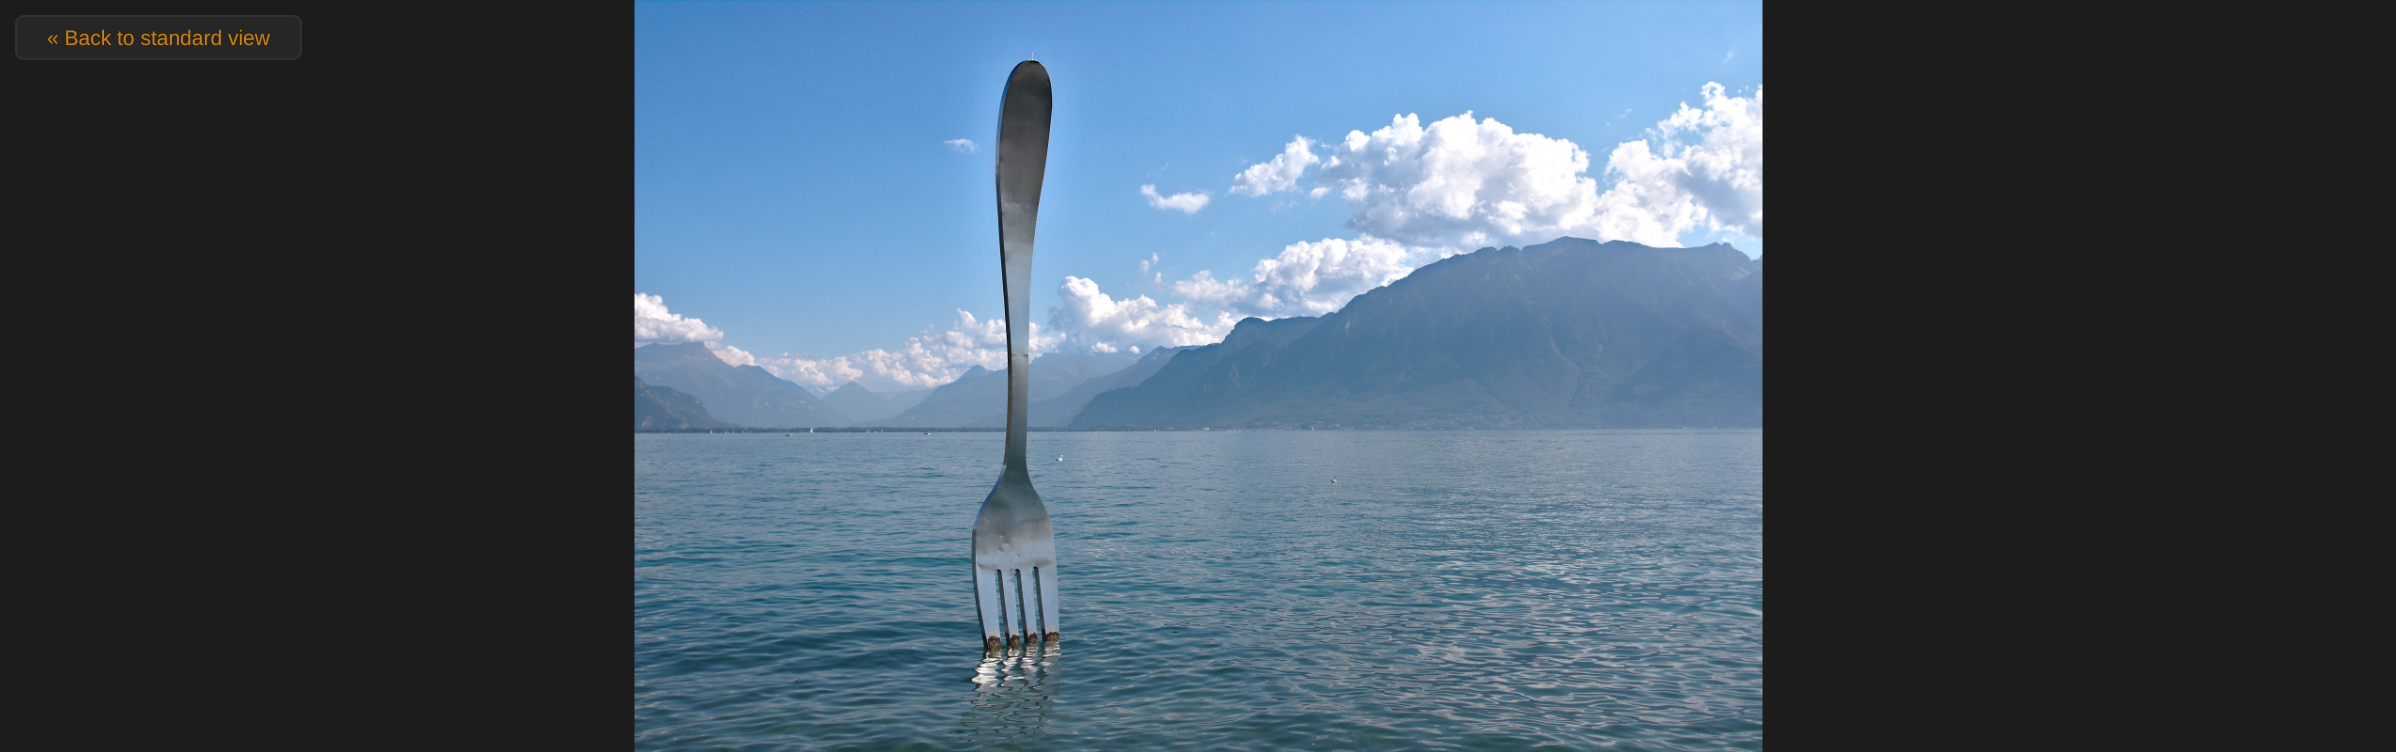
import math
import cairo

surface = cairo.ImageSurface(cairo.FORMAT_RGB24, 2396, 752)
c = cairo.Context(surface)
options = cairo.FontOptions()
options.set_hint_metrics(cairo.HINT_METRICS_OFF)
options.set_hint_style(cairo.HINT_STYLE_NONE)
c.set_font_options(options)
c.set_miter_limit(4)
def C(code):
 c.set_source_rgb(*(v / 255 for v in bytes.fromhex(code[-6:])))
def F(family, size, italic, bold):
 c.select_font_face(family, cairo.FONT_SLANT_ITALIC if italic else cairo.FONT_SLANT_NORMAL, cairo.FONT_WEIGHT_BOLD if bold else cairo.FONT_WEIGHT_NORMAL)
 c.set_font_size(size)
def T(x, y, s):
 c.move_to(x, y)
 c.show_text(s)
def Q(x, y, w, h, r):
 c.new_sub_path()
 for i, (u, v) in enumerate([(x + w - r, y + h - r), (x + r, y + h - r), (x + r, y + r), (x + w - r, y + r)]):
  c.arc(u, v, r, i * math.pi / 2, (i + 1) * math.pi / 2)
 c.close_path()
def I(path, x, y, w, h):
 c.save()
 c.set_source_surface(cairo.ImageSurface.create_from_png(path), x, y)
 c.rectangle(x, y, w, h)
 c.fill()
 c.restore()
C('1c1c1c')
c.paint()
C('262626')
Q(16,16,285,43,8)
c.fill_preserve()
C('303230')
c.stroke()
F('Liberation Sans',21,0,0)
C('ce7e06')
T(47,45,'« Back to standard view')
I('1.png',634,0,1129,752)
surface.write_to_png('o.png')
